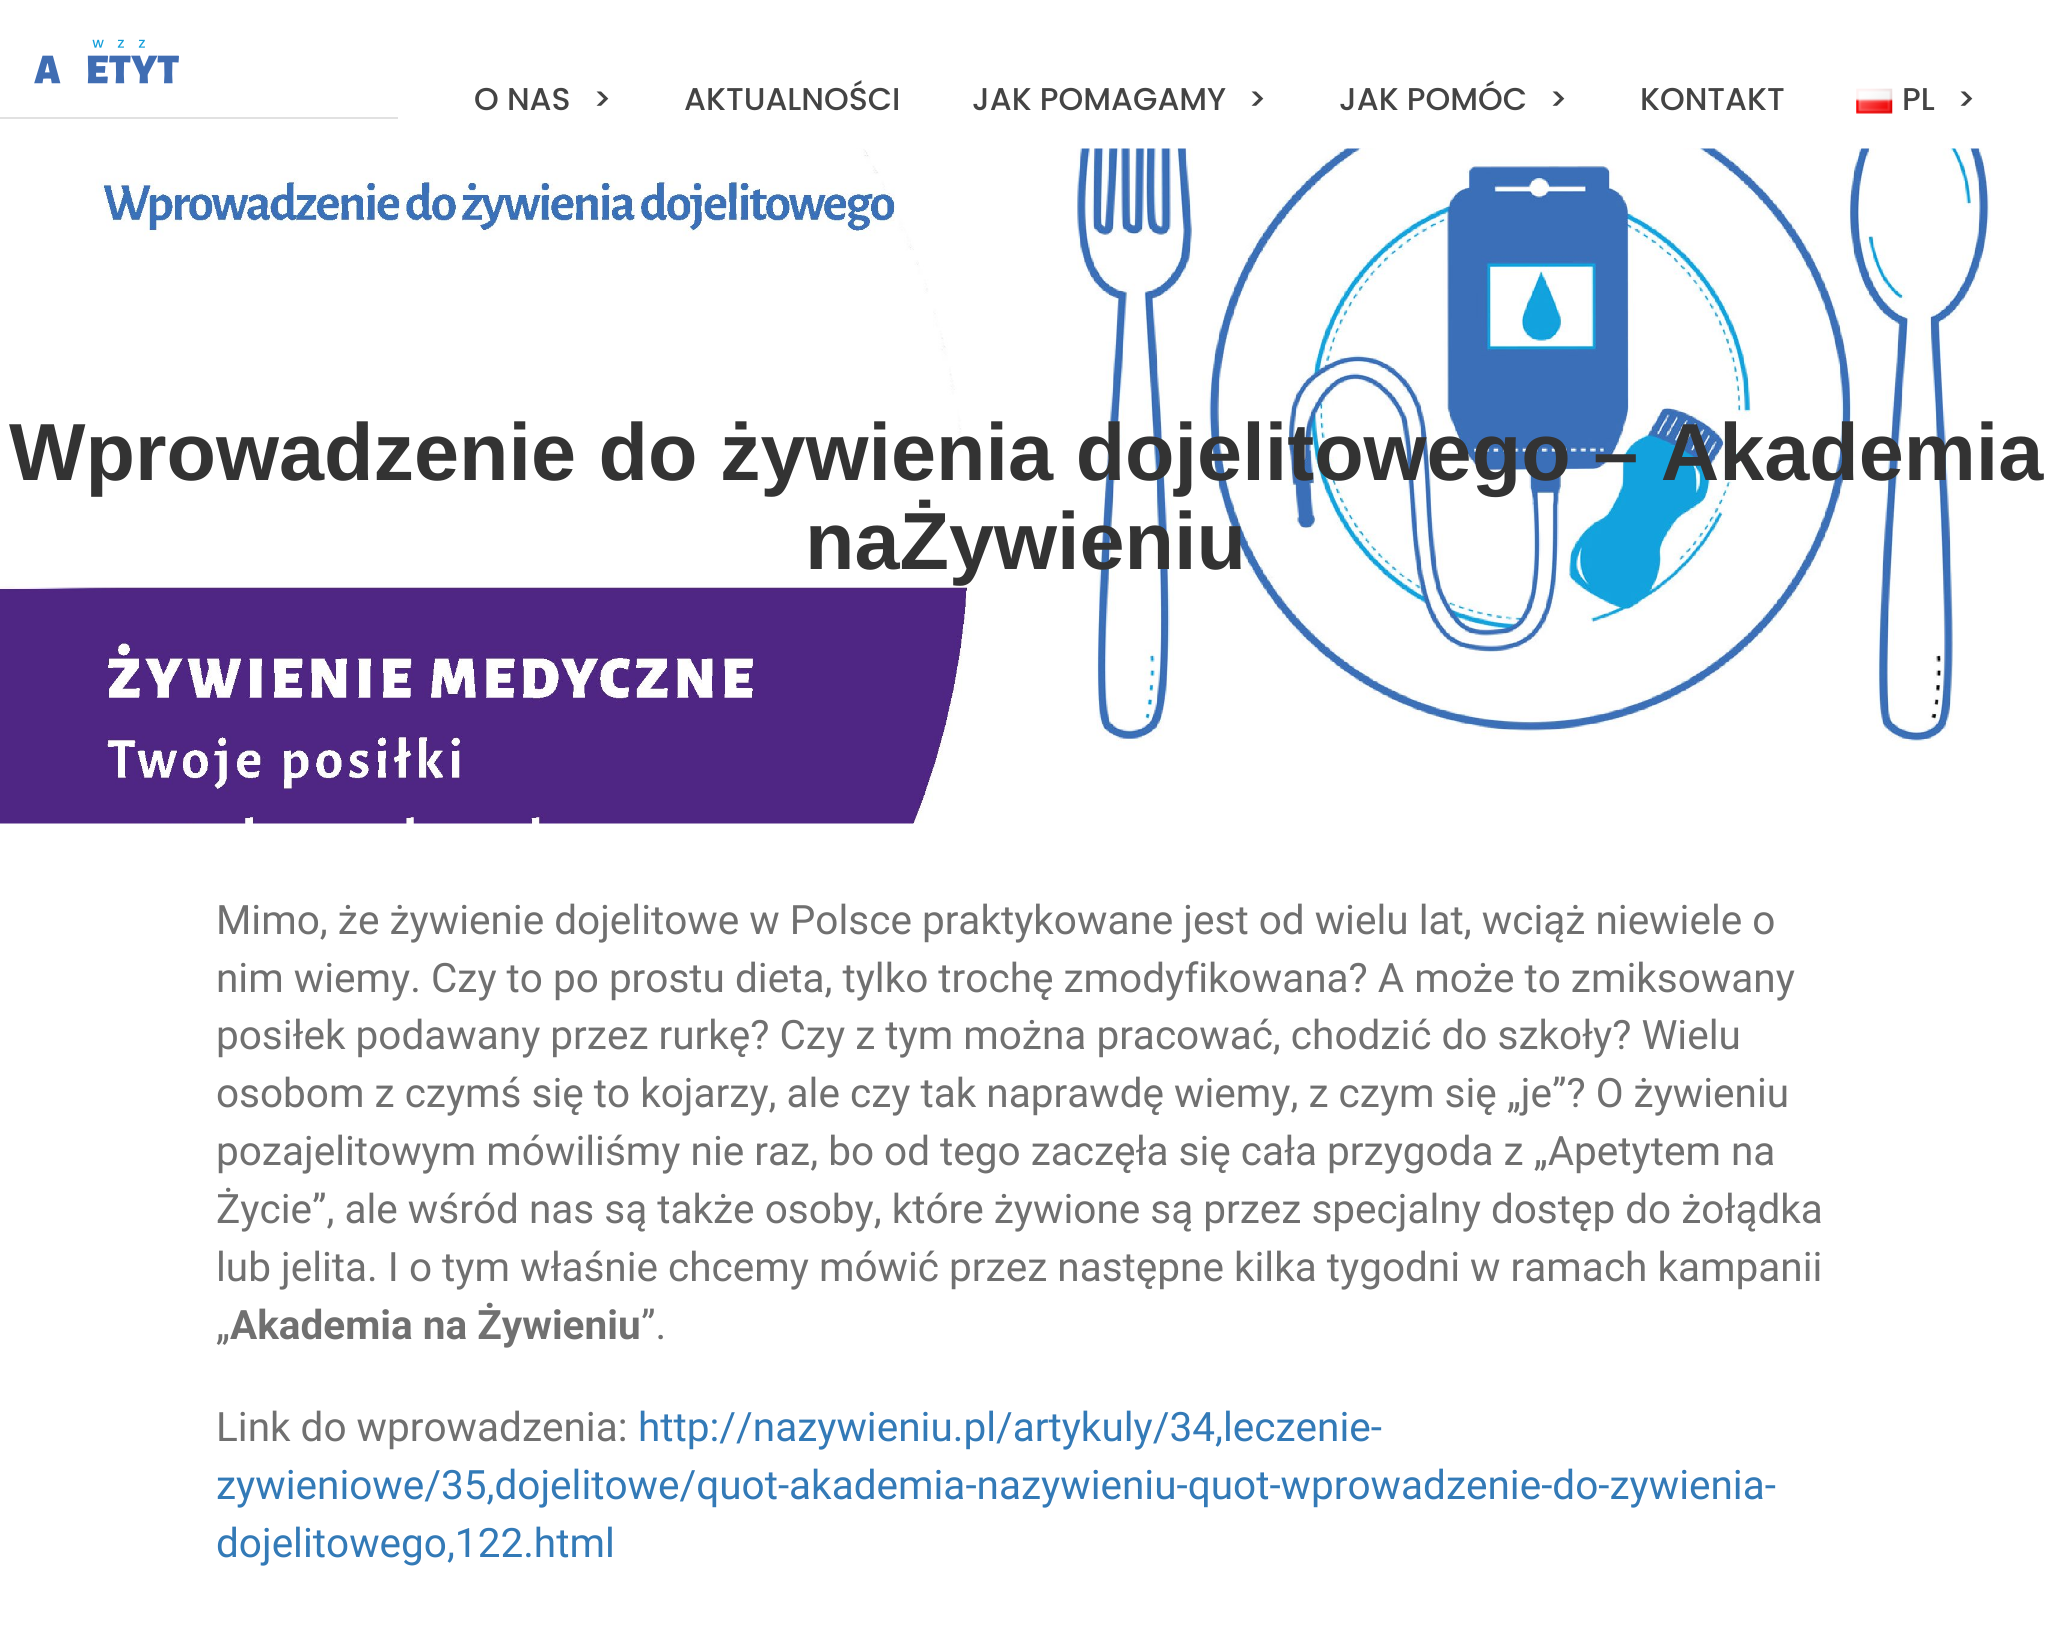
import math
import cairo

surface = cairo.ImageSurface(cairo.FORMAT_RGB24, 2050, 1646)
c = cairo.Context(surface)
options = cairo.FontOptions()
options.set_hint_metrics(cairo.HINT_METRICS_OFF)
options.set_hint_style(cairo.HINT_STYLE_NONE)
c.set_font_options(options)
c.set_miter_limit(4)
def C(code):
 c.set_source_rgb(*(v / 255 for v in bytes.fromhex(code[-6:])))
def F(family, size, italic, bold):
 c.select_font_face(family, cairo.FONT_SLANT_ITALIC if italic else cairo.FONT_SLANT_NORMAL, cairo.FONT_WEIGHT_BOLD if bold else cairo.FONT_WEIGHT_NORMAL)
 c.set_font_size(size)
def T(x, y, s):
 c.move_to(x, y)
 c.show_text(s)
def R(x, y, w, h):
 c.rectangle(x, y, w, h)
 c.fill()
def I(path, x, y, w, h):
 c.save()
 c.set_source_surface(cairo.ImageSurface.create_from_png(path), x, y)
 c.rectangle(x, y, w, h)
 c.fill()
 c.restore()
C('ffffff')
c.paint()
C('e1e1e1')
R(0,117,398,2)
I('1.png',34,39,145,45)
F('Poppins Medium',31.5,0,0)
C('444444')
T(474,110,'O NAS')
T(593,110,'>')
T(684,110,'AKTUALNOŚCI')
T(972,110,'JAK POMAGAMY')
T(1248,110,'>')
T(1339,110,'JAK POMÓC')
T(1549,110,'>')
T(1640,110,'KONTAKT')
I('2.png',1856,88,37,26)
T(1902,110,'PL')
T(1957,110,'>')
I('3.png',0,148,1991,676)
F('Liberation Sans',81,0,1)
C('333333')
T(9,480,'Wprowadzenie do żywienia dojelitowego – Akademia')
T(805,569,'naŻywieniu')
F('Roboto',40.5,0,0)
C('707070')
T(216,934,'Mimo, że żywienie dojelitowe w Polsce praktykowane jest od wielu lat, wciąż niewiele o')
T(216,992,'nim wiemy. Czy to po prostu dieta, tylko trochę zmodyfikowana? A może to zmiksowany')
T(216,1049,'posiłek podawany przez rurkę? Czy z tym można pracować, chodzić do szkoły? Wielu')
T(216,1107,'osobom z czymś się to kojarzy, ale czy tak naprawdę wiemy, z czym się „je”? O żywieniu')
T(216,1165,'pozajelitowym mówiliśmy nie raz, bo od tego zaczęła się cała przygoda z „Apetytem na')
T(216,1223,'Życie”, ale wśród nas są także osoby, które żywione są przez specjalny dostęp do żołądka')
T(216,1281,'lub jelita. I o tym właśnie chcemy mówić przez następne kilka tygodni w ramach kampanii')
T(216,1339,'„')
F('Roboto',40.5,0,1)
T(230,1339,'Akademia na Żywieniu')
F('Roboto',40.5,0,0)
T(641,1339,'”.')
T(216,1441,'Link do wprowadzenia:')
C('337ab7')
T(638,1441,'http://nazywieniu.pl/artykuly/34,leczenie-')
T(216,1499,'zywieniowe/35,dojelitowe/quot-akademia-nazywieniu-quot-wprowadzenie-do-zywienia-')
T(216,1557,'dojelitowego,122.html')
surface.write_to_png('o.png')
